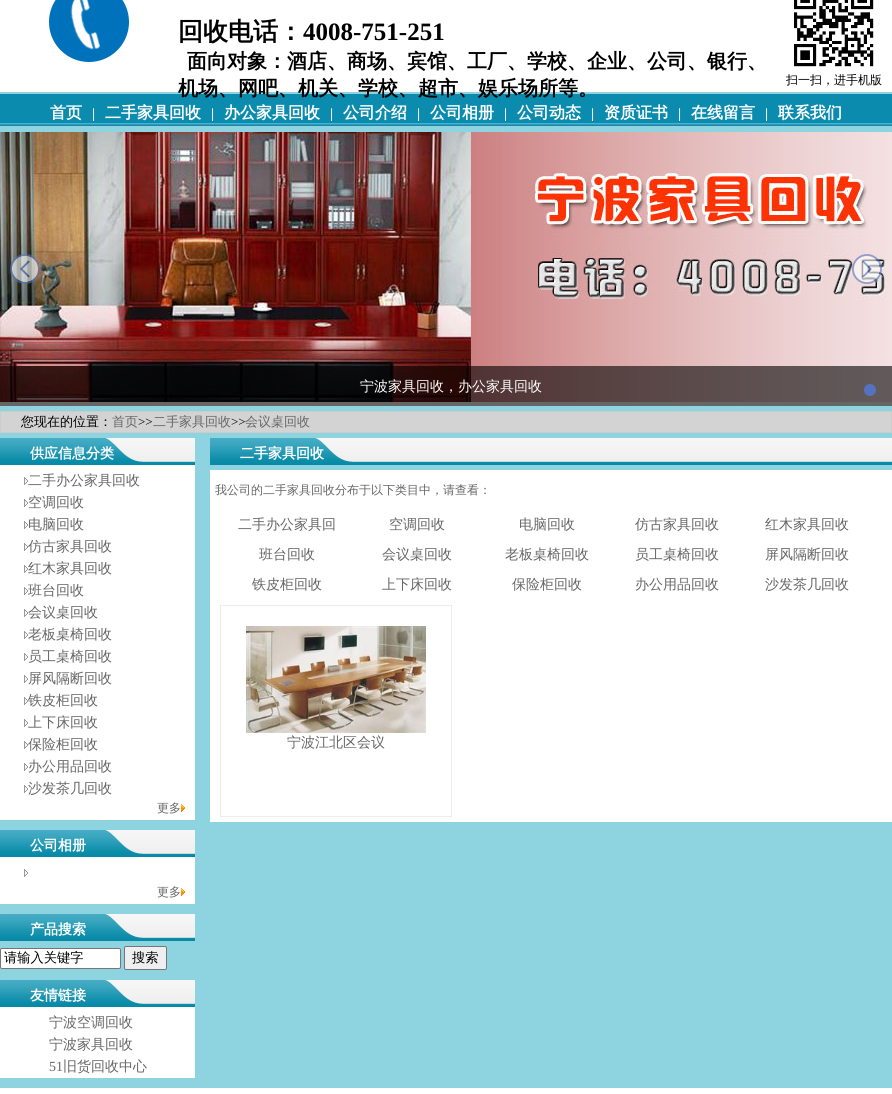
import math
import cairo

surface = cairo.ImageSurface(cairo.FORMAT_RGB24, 892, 1094)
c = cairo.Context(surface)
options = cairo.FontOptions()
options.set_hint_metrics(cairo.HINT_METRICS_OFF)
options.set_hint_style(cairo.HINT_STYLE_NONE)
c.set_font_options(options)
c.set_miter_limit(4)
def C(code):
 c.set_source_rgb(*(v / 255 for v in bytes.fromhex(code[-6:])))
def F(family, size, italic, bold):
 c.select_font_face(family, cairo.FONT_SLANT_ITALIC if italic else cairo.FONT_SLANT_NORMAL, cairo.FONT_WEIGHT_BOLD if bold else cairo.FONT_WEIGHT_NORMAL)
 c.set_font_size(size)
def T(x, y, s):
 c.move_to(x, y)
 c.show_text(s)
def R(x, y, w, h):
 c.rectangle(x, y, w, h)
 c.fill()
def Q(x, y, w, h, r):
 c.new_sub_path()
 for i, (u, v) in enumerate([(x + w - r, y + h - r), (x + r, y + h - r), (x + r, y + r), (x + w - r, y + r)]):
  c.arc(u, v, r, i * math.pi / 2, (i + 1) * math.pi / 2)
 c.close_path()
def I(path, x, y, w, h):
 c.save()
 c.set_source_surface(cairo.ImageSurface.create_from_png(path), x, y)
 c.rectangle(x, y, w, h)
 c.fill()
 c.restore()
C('ffffff')
c.paint()
C('8ed3e0')
R(0,92,892,996)
I('1.png',49,0,80,62)
F('WenQuanYi Zen Hei',25,0,1)
C('000000')
T(178,40,'回收电话：')
F('Liberation Serif',25,0,1)
T(303,40,'4008-751-251')
F('WenQuanYi Zen Hei',20,0,1)
T(187,68,'面向对象：酒店、商场、宾馆、工厂、学校、企业、公司、银行、')
I('3.png',0,94,892,32)
T(178,95,'机场、网吧、机关、学校、超市、娱乐场所等。')
I('2.png',794,0,80,67)
F('WenQuanYi Zen Hei Medium',12,0,0)
T(786,84,'扫一扫，进手机版')
F('WenQuanYi Zen Hei',16,0,1)
C('ffffff')
T(50,118,'首页')
F('Liberation Serif',14,0,1)
T(92,118,'|')
F('WenQuanYi Zen Hei',16,0,1)
T(105,118,'二手家具回收')
F('Liberation Serif',14,0,1)
T(211,118,'|')
F('WenQuanYi Zen Hei',16,0,1)
T(224,118,'办公家具回收')
F('Liberation Serif',14,0,1)
T(330,118,'|')
F('WenQuanYi Zen Hei',16,0,1)
T(343,118,'公司介绍')
F('Liberation Serif',14,0,1)
T(417,118,'|')
F('WenQuanYi Zen Hei',16,0,1)
T(430,118,'公司相册')
F('Liberation Serif',14,0,1)
T(504,118,'|')
F('WenQuanYi Zen Hei',16,0,1)
T(517,118,'公司动态')
F('Liberation Serif',14,0,1)
T(591,118,'|')
F('WenQuanYi Zen Hei',16,0,1)
T(604,118,'资质证书')
F('Liberation Serif',14,0,1)
T(678,118,'|')
F('WenQuanYi Zen Hei',16,0,1)
T(691,118,'在线留言')
F('Liberation Serif',14,0,1)
T(765,118,'|')
F('WenQuanYi Zen Hei',16,0,1)
T(778,118,'联系我们')
C('fefefe')
R(0,402,892,4)
I('4.png',0,132,892,270)
I('5.png',10,254,30,30)
I('6.png',852,254,30,30)
c.set_source_rgba(0,0,0,0.6)
R(0,366,892,40)
F('WenQuanYi Zen Hei Medium',14,0,0)
C('ffffff')
T(360,391,'宁波家具回收，办公家具回收')
C('5472bf')
c.new_path()
c.arc(870,390,6,0,2 * math.pi)
c.fill()
C('d3d3d3')
c.rectangle(.5,411.5,891,21)
c.fill_preserve()
C('cccccc')
c.set_line_width(1)
c.stroke()
F('WenQuanYi Zen Hei Medium',13,0,0)
C('000000')
T(21,426,'您现在的位置：')
C('666666')
T(112,426,'首页')
F('Liberation Serif',13,0,0)
C('000000')
T(138,426,'>>')
F('WenQuanYi Zen Hei Medium',13,0,0)
C('666666')
T(153,426,'二手家具回收')
F('Liberation Serif',13,0,0)
C('000000')
T(231,426,'>>')
F('WenQuanYi Zen Hei Medium',13,0,0)
C('666666')
T(245,426,'会议桌回收')
C('ffffff')
R(0,465,195,355)
I('7.png',0,438,195,27)
F('WenQuanYi Zen Hei',14,0,1)
T(30,458,'供应信息分类')
I('8.png',24,477,4,8)
F('WenQuanYi Zen Hei Medium',14,0,0)
C('666666')
T(28,485,'二手办公家具回收')
I('8.png',24,499,4,8)
T(28,507,'空调回收')
I('8.png',24,521,4,8)
T(28,529,'电脑回收')
I('8.png',24,543,4,8)
T(28,551,'仿古家具回收')
I('8.png',24,565,4,8)
T(28,573,'红木家具回收')
I('8.png',24,587,4,8)
T(28,595,'班台回收')
I('8.png',24,609,4,8)
T(28,617,'会议桌回收')
I('8.png',24,631,4,8)
T(28,639,'老板桌椅回收')
I('8.png',24,653,4,8)
T(28,661,'员工桌椅回收')
I('8.png',24,675,4,8)
T(28,683,'屏风隔断回收')
I('8.png',24,697,4,8)
T(28,705,'铁皮柜回收')
I('8.png',24,719,4,8)
T(28,727,'上下床回收')
I('8.png',24,741,4,8)
T(28,749,'保险柜回收')
I('8.png',24,763,4,8)
T(28,771,'办公用品回收')
I('8.png',24,785,4,8)
T(28,793,'沙发茶几回收')
F('WenQuanYi Zen Hei Medium',12,0,0)
T(157,812,'更多')
I('9.png',181,804,4,8)
C('ffffff')
R(0,857,195,47)
I('7.png',0,830,195,27)
F('WenQuanYi Zen Hei',14,0,1)
T(30,850,'公司相册')
I('8.png',24,869,4,8)
F('WenQuanYi Zen Hei Medium',12,0,0)
C('666666')
T(157,896,'更多')
I('9.png',181,888,4,8)
I('7.png',0,914,195,27)
F('WenQuanYi Zen Hei',14,0,1)
C('ffffff')
T(30,934,'产品搜索')
Q(.5,948.5,120,20,1.5)
c.fill_preserve()
C('767676')
c.stroke()
F('WenQuanYi Zen Hei Medium',13.25,0,0)
C('000000')
T(4,962,'请输入关键字')
C('efefef')
Q(124.5,946.5,42,23,1.5)
c.fill_preserve()
C('767676')
c.stroke()
C('000000')
T(132,962,'搜索')
C('ffffff')
R(0,1007,195,71)
I('7.png',0,980,195,27)
F('WenQuanYi Zen Hei',14,0,1)
T(30,1000,'友情链接')
F('WenQuanYi Zen Hei Medium',14,0,0)
C('666666')
T(49,1027,'宁波空调回收')
T(49,1049,'宁波家具回收')
F('Liberation Serif',14,0,0)
T(49,1071,'51')
F('WenQuanYi Zen Hei Medium',14,0,0)
T(63,1071,'旧货回收中心')
I('10.png',210,438,682,27)
F('WenQuanYi Zen Hei',14,0,1)
C('ffffff')
T(240,458,'二手家具回收')
R(210,470,682,352)
F('WenQuanYi Zen Hei Medium',12,0,0)
C('666666')
T(215,494,'我公司的二手家具回收分布于以下类目中，请查看：')
F('WenQuanYi Zen Hei Medium',14,0,0)
T(238,529,'二手办公家具回')
T(389,529,'空调回收')
T(519,529,'电脑回收')
T(635,529,'仿古家具回收')
T(765,529,'红木家具回收')
T(259,559,'班台回收')
T(382,559,'会议桌回收')
T(505,559,'老板桌椅回收')
T(635,559,'员工桌椅回收')
T(765,559,'屏风隔断回收')
T(252,589,'铁皮柜回收')
T(382,589,'上下床回收')
T(512,589,'保险柜回收')
T(635,589,'办公用品回收')
T(765,589,'沙发茶几回收')
c.rectangle(220.5,605.5,231,211)
C('ebedeb')
c.stroke()
I('11.png',246,626,180,107)
C('666666')
T(287,747,'宁波江北区会议')
surface.write_to_png('o.png')
